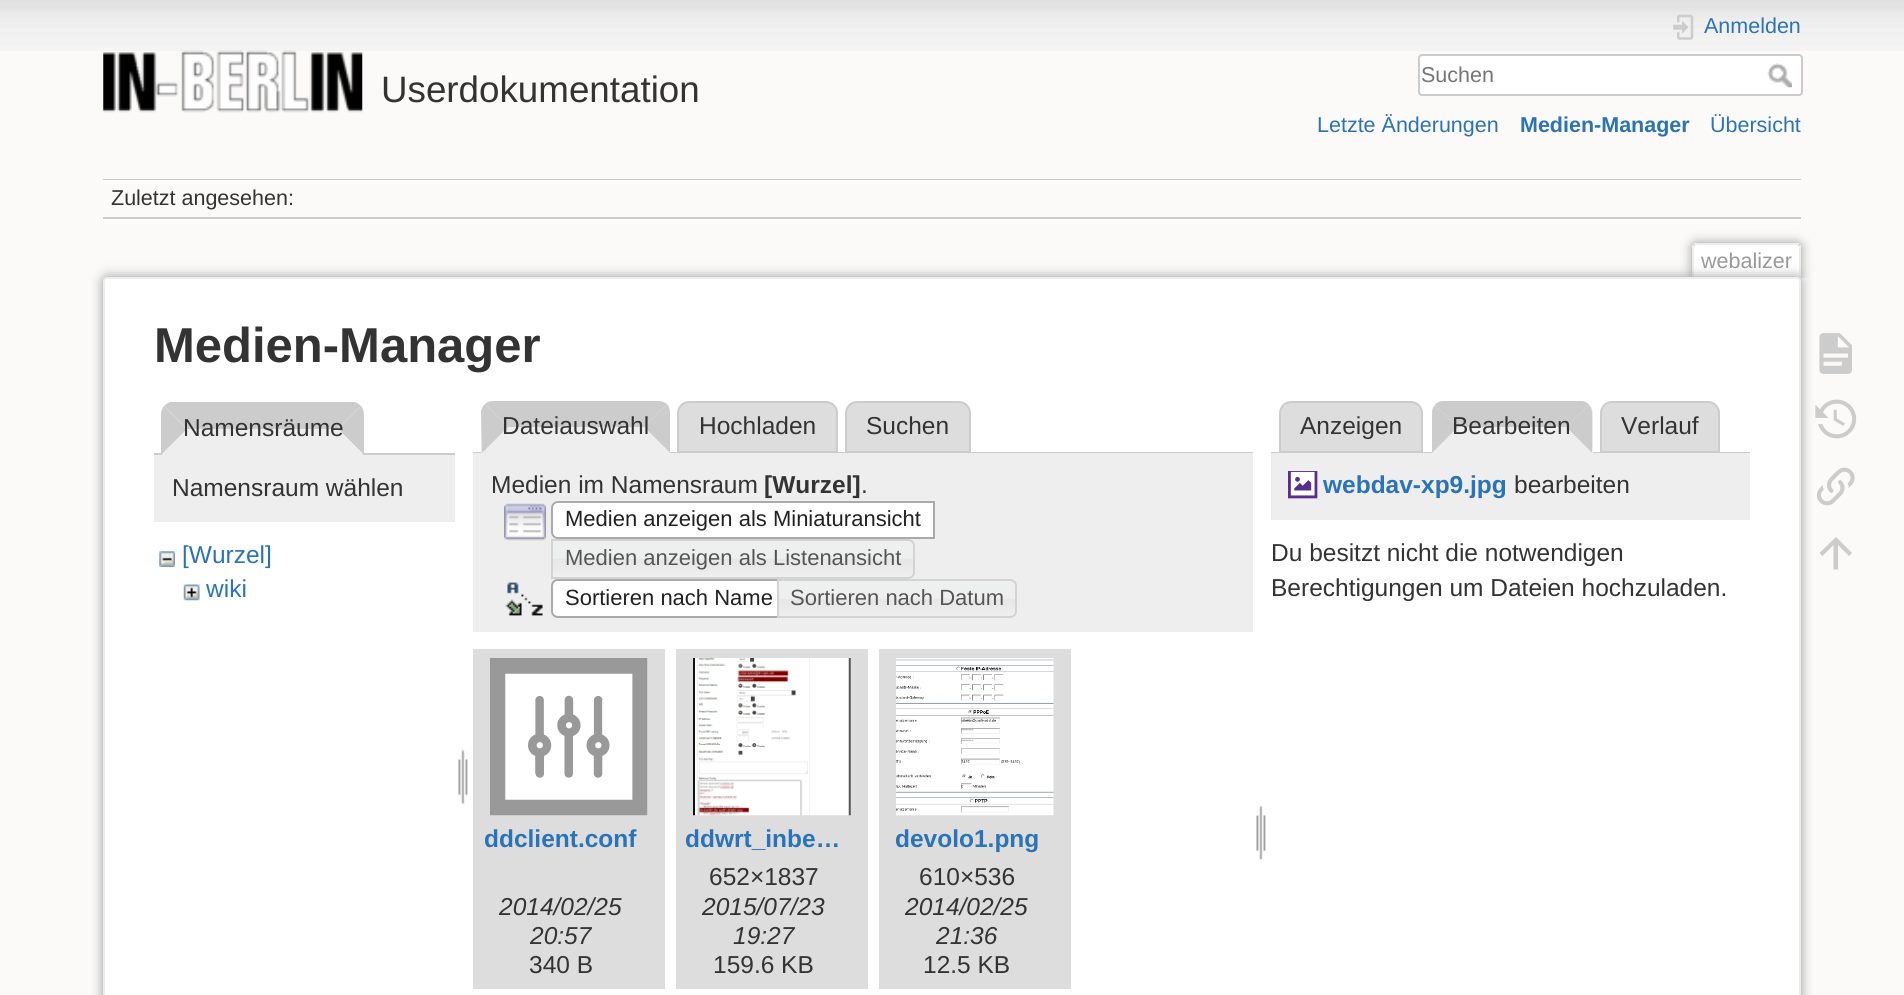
import math
import cairo

surface = cairo.ImageSurface(cairo.FORMAT_RGB24, 1904, 995)
c = cairo.Context(surface)
options = cairo.FontOptions()
options.set_hint_metrics(cairo.HINT_METRICS_OFF)
options.set_hint_style(cairo.HINT_STYLE_NONE)
c.set_font_options(options)
c.set_miter_limit(4)
def C(code):
 c.set_source_rgb(*(v / 255 for v in bytes.fromhex(code[-6:])))
def F(family, size, italic, bold):
 c.select_font_face(family, cairo.FONT_SLANT_ITALIC if italic else cairo.FONT_SLANT_NORMAL, cairo.FONT_WEIGHT_BOLD if bold else cairo.FONT_WEIGHT_NORMAL)
 c.set_font_size(size)
def T(x, y, s):
 c.move_to(x, y)
 c.show_text(s)
def R(x, y, w, h):
 c.rectangle(x, y, w, h)
 c.fill()
def Q(x, y, w, h, r):
 c.new_sub_path()
 for i, (u, v) in enumerate([(x + w - r, y + h - r), (x + r, y + h - r), (x + r, y + r), (x + w - r, y + r)]):
  c.arc(u, v, r, i * math.pi / 2, (i + 1) * math.pi / 2)
 c.close_path()
def S(x, y, w, h, r, blur, alpha):
 c.push_group_with_content(cairo.CONTENT_ALPHA)
 c.set_operator(cairo.OPERATOR_SOURCE)
 for i in range(15, -16, -2):
  e = blur * i / 6
  if min(w, h) + 2 * e > 0:
   c.set_source_rgba(0, 0, 0, alpha * math.erfc((i - 1) / 8.5) / 2)
   Q(x - e, y - e, w + 2 * e, h + 2 * e, max(0, min(r + e + blur * .6, min(w, h) / 2 + e)))
   c.fill()
 c.mask(c.pop_group())
def I(path, x, y, w, h):
 c.save()
 c.set_source_surface(cairo.ImageSurface.create_from_png(path), x, y)
 c.rectangle(x, y, w, h)
 c.fill()
 c.restore()
C('fbfaf9')
c.paint()
I('1.png',0,0,1904,51)
I('2.png',103,50,260,63)
F('Liberation Sans',36.75,0,0)
C('333333')
T(381,102,'Userdokumentation')
I('3.png',1673,14,21,26)
F('Liberation Sans',21.5,0,0)
C('2b73b7')
T(1704,33,'Anmelden')
C('ffffff')
Q(1419,55,383,40,3)
c.fill_preserve()
C('cccccc')
c.stroke()
C('757575')
T(1421,82,'Suchen')
I('4.png',1767,63,25,25)
C('2b73b7')
T(1317,132,'Letzte Änderungen')
F('Liberation Sans',21.5,0,1)
T(1520,132,'Medien-Manager')
F('Liberation Sans',21.5,0,0)
T(1710,132,'Übersicht')
C('cccccc')
R(103,179,1698,1)
C('ffffff')
R(103,219,1698,2)
R(103,180,1698,2)
C('cccccc')
R(103,217,1698,2)
C('333333')
T(111,205,'Zuletzt angesehen:')
c.save()
c.rectangle(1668,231,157,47)
c.clip()
C('999999')
S(1692,243,109,35,4,5.5,1)
c.restore()
C('ffffff')
c.new_path()
c.move_to(1696,245)
c.line_to(1797,245)
c.curve_to(1798,245,1799,246,1799,247)
c.line_to(1799,278)
c.line_to(1694,278)
c.line_to(1694,247)
c.curve_to(1694,246,1695,245,1696,245)
c.close_path()
c.fill()
C('eeeeee')
R(1694,243,105,2)
R(1799,245,2,33)
R(1692,245,2,33)
C('999999')
T(1701,268,'webalizer')
C('999999')
S(103,277,1698,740,4,6,1)
C('ffffff')
Q(104,278,1696,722,3)
c.fill_preserve()
C('eeeeee')
c.stroke()
F('Liberation Sans',49,0,1)
C('333333')
T(154,362,'Medien-Manager')
C('cccccc')
c.new_path()
c.move_to(355,402)
c.line_to(170,402)
c.curve_to(168,403,166,404,164,406)
c.line_to(187,429)
c.line_to(338,429)
c.line_to(361,406)
c.curve_to(359,404,357,403,355,402)
c.close_path()
c.fill()
R(154,453,301,2)
c.new_path()
c.move_to(361,406)
c.line_to(338,429)
c.line_to(364,455)
c.line_to(364,415)
c.curve_to(364,412,363,408,361,406)
c.close_path()
c.fill()
C('eeeeee')
c.new_path()
c.move_to(364,455)
c.line_to(338,429)
c.line_to(187,429)
c.line_to(161,455)
c.close_path()
c.fill()
C('cccccc')
c.new_path()
c.move_to(161,455)
c.line_to(161,415)
c.curve_to(161,412,162,408,164,406)
c.line_to(187,429)
c.close_path()
c.fill()
F('Liberation Sans',24.5,0,0)
C('333333')
T(183,436,'Namensräume')
C('eeeeee')
R(154,455,301,67)
C('333333')
T(172,496,'Namensraum wählen')
I('5.png',159,551,16,16)
C('2b73b7')
T(182,563,'[Wurzel]')
I('6.png',183,584,17,17)
T(206,597,'wiki')
I('7.png',458,749,10,55)
C('dddddd')
c.new_path()
c.move_to(689,402)
c.line_to(826,402)
c.curve_to(832,402,837,407,837,413)
c.line_to(837,452)
c.line_to(678,452)
c.line_to(678,413)
c.curve_to(678,407,683,402,689,402)
c.close_path()
c.fill_preserve()
C('cccccc')
c.stroke()
C('dddddd')
c.new_path()
c.move_to(857,402)
c.line_to(959,402)
c.curve_to(965,402,970,407,970,413)
c.line_to(970,452)
c.line_to(846,452)
c.line_to(846,413)
c.curve_to(846,407,851,402,857,402)
c.close_path()
c.fill_preserve()
C('cccccc')
c.stroke()
R(473,452,780,1)
C('eeeeee')
c.new_path()
c.move_to(493,401)
c.line_to(658,401)
c.curve_to(664.5,401,670,406.5,670,413)
c.line_to(670,453)
c.line_to(481,453)
c.line_to(481,413)
c.curve_to(481,406.5,486.5,401,493,401)
c.close_path()
c.fill()
C('cccccc')
c.new_path()
c.move_to(494,401)
c.curve_to(490,401,487,402,485,404)
c.line_to(508,427)
c.line_to(644,427)
c.line_to(667,404)
c.curve_to(664,402,662,401,658,401)
c.close_path()
c.fill()
c.new_path()
c.move_to(670,453)
c.line_to(670,413)
c.curve_to(670,410,669,406,667,404)
c.line_to(644,427)
c.close_path()
c.fill()
C('eeeeee')
c.new_path()
c.move_to(670,453)
c.line_to(644,427)
c.line_to(508,427)
c.line_to(482,453)
c.close_path()
c.fill()
C('cccccc')
c.new_path()
c.move_to(481,411)
c.curve_to(482,408,483,406,485,404)
c.line_to(508,427)
c.line_to(482,453)
c.close_path()
c.fill()
C('333333')
T(502,434,'Dateiauswahl')
T(699,434,'Hochladen')
T(866,434,'Suchen')
C('eeeeee')
R(473,453,780,179)
C('333333')
T(491,493,'Medien im Namensraum')
F('Liberation Sans',24.5,0,1)
T(764,493,'[Wurzel]')
F('Liberation Sans',24.5,0,0)
T(861,493,'.')
I('8.png',504,503,42,38)
C('ffffff')
c.new_path()
c.move_to(558,501)
c.line_to(935,501)
c.line_to(935,539)
c.line_to(558,539)
c.curve_to(554,539,551,536,551,532)
c.line_to(551,508)
c.curve_to(551,504,554,501,558,501)
c.close_path()
c.fill()
I('9.png',552,500,382,4)
c.new_path()
c.move_to(558,502)
c.line_to(934,502)
c.line_to(934,538)
c.line_to(558,538)
c.curve_to(554.5,538,552,535.5,552,532)
c.line_to(552,508)
c.curve_to(552,504.5,554.5,502,558,502)
c.close_path()
C('aaaaaa')
c.stroke()
F('Liberation Sans',22,0,0)
C('212121')
T(565,526,'Medien anzeigen als Miniaturansicht')
I('10.png',553,539,362,40)
c.new_path()
c.move_to(552,540)
c.line_to(908,540)
c.curve_to(911.5,540,914,542.5,914,546)
c.line_to(914,572)
c.curve_to(914,575.5,911.5,578,908,578)
c.line_to(552,578)
c.close_path()
C('d3d3d3')
c.stroke()
C('555555')
T(565,565,'Medien anzeigen als Listenansicht')
I('11.png',505,582,38,34)
C('ffffff')
c.new_path()
c.move_to(558,580)
c.line_to(785,580)
c.line_to(785,617)
c.line_to(558,617)
c.curve_to(554.5,617,552,614.5,552,611)
c.line_to(552,586)
c.curve_to(552,582.5,554.5,580,558,580)
c.close_path()
c.fill_preserve()
C('aaaaaa')
c.stroke()
C('212121')
T(565,605,'Sortieren nach Name')
I('12.png',779,579,238,39)
c.new_path()
c.move_to(778,580)
c.line_to(1010,580)
c.curve_to(1013.5,580,1016,582.5,1016,586)
c.line_to(1016,611)
c.curve_to(1016,614.5,1013.5,617,1010,617)
c.line_to(778,617)
c.close_path()
C('d3d3d3')
c.stroke()
C('555555')
T(790,605,'Sortieren nach Datum')
C('dddddd')
R(473,649,192,340)
I('13.png',490,658,158,158)
F('Liberation Sans',24.5,0,1)
C('2b73b7')
T(484,847,'ddclient.conf')
F('Liberation Sans',24.5,1,0)
C('333333')
T(499,915,'2014/02/25')
T(530,944,'20:57')
F('Liberation Sans',24.5,0,0)
T(529,973,'340 B')
C('dddddd')
R(676,649,192,340)
I('14.png',693,658,158,158)
F('Liberation Sans',24.5,0,1)
C('2b73b7')
T(685,847,'ddwrt_inbe…')
F('Liberation Sans',24.5,0,0)
C('333333')
T(709,885,'652×1837')
F('Liberation Sans',24.5,1,0)
T(702,915,'2015/07/23')
T(733,944,'19:27')
F('Liberation Sans',24.5,0,0)
T(713,973,'159.6 KB')
C('dddddd')
R(879,649,192,340)
I('15.png',896,658,158,158)
F('Liberation Sans',24.5,0,1)
C('2b73b7')
T(895,847,'devolo1.png')
F('Liberation Sans',24.5,0,0)
C('333333')
T(919,885,'610×536')
F('Liberation Sans',24.5,1,0)
T(905,915,'2014/02/25')
T(936,944,'21:36')
F('Liberation Sans',24.5,0,0)
T(923,973,'12.5 KB')
I('7.png',1256,805,10,55)
C('dddddd')
c.new_path()
c.move_to(1291,402)
c.line_to(1411,402)
c.curve_to(1417,402,1422,407,1422,413)
c.line_to(1422,452)
c.line_to(1280,452)
c.line_to(1280,413)
c.curve_to(1280,407,1285,402,1291,402)
c.close_path()
c.fill_preserve()
C('cccccc')
c.stroke()
C('333333')
T(1300,434,'Anzeigen')
C('dddddd')
c.new_path()
c.move_to(1612,402)
c.line_to(1708,402)
c.curve_to(1714,402,1719,407,1719,413)
c.line_to(1719,452)
c.line_to(1601,452)
c.line_to(1601,413)
c.curve_to(1601,407,1606,402,1612,402)
c.close_path()
c.fill_preserve()
C('cccccc')
c.stroke()
R(1271,452,479,1)
C('eeeeee')
c.new_path()
c.move_to(1444,401)
c.line_to(1581,401)
c.curve_to(1587.5,401,1593,406.5,1593,413)
c.line_to(1593,453)
c.line_to(1432,453)
c.line_to(1432,413)
c.curve_to(1432,406.5,1437.5,401,1444,401)
c.close_path()
c.fill()
C('cccccc')
c.new_path()
c.move_to(1444,401)
c.curve_to(1440,401,1437,402,1435,405)
c.line_to(1458,427)
c.line_to(1566,427)
c.line_to(1589,405)
c.curve_to(1587,402,1584,401,1580,401)
c.close_path()
c.fill()
c.new_path()
c.move_to(1592,453)
c.line_to(1592,413)
c.curve_to(1592,410,1591,407,1589,405)
c.line_to(1566,427)
c.close_path()
c.fill()
C('eeeeee')
c.new_path()
c.move_to(1592,453)
c.line_to(1566,427)
c.line_to(1458,427)
c.line_to(1432,453)
c.close_path()
c.fill()
C('cccccc')
c.new_path()
c.move_to(1435,405)
c.curve_to(1433,407,1432,410,1432,413)
c.line_to(1432,453)
c.line_to(1458,427)
c.close_path()
c.fill()
C('333333')
T(1452,434,'Bearbeiten')
T(1621,434,'Verlauf')
C('eeeeee')
R(1271,453,479,67)
I('16.png',1288,471,30,28)
F('Liberation Sans',24.5,0,1)
C('2b73b7')
T(1323,493,'webdav-xp9.jpg')
F('Liberation Sans',24.5,0,0)
C('333333')
T(1514,493,'bearbeiten')
T(1271,561,'Du besitzt nicht die notwendigen')
T(1271,596,'Berechtigungen um Dateien hochzuladen.')
I('17.png',1819,333,33,41)
I('18.png',1815,399,42,40)
I('19.png',1816,467,39,39)
C('cccccc')
c.new_path()
c.move_to(1838,569.5)
c.line_to(1833.5,569.5)
c.line_to(1833.5,545)
c.line_to(1822.5,556)
c.line_to(1819.5,553)
c.line_to(1836,537)
c.line_to(1852,553)
c.line_to(1849,556)
c.line_to(1838,545)
c.close_path()
c.fill()
surface.write_to_png('o.png')
